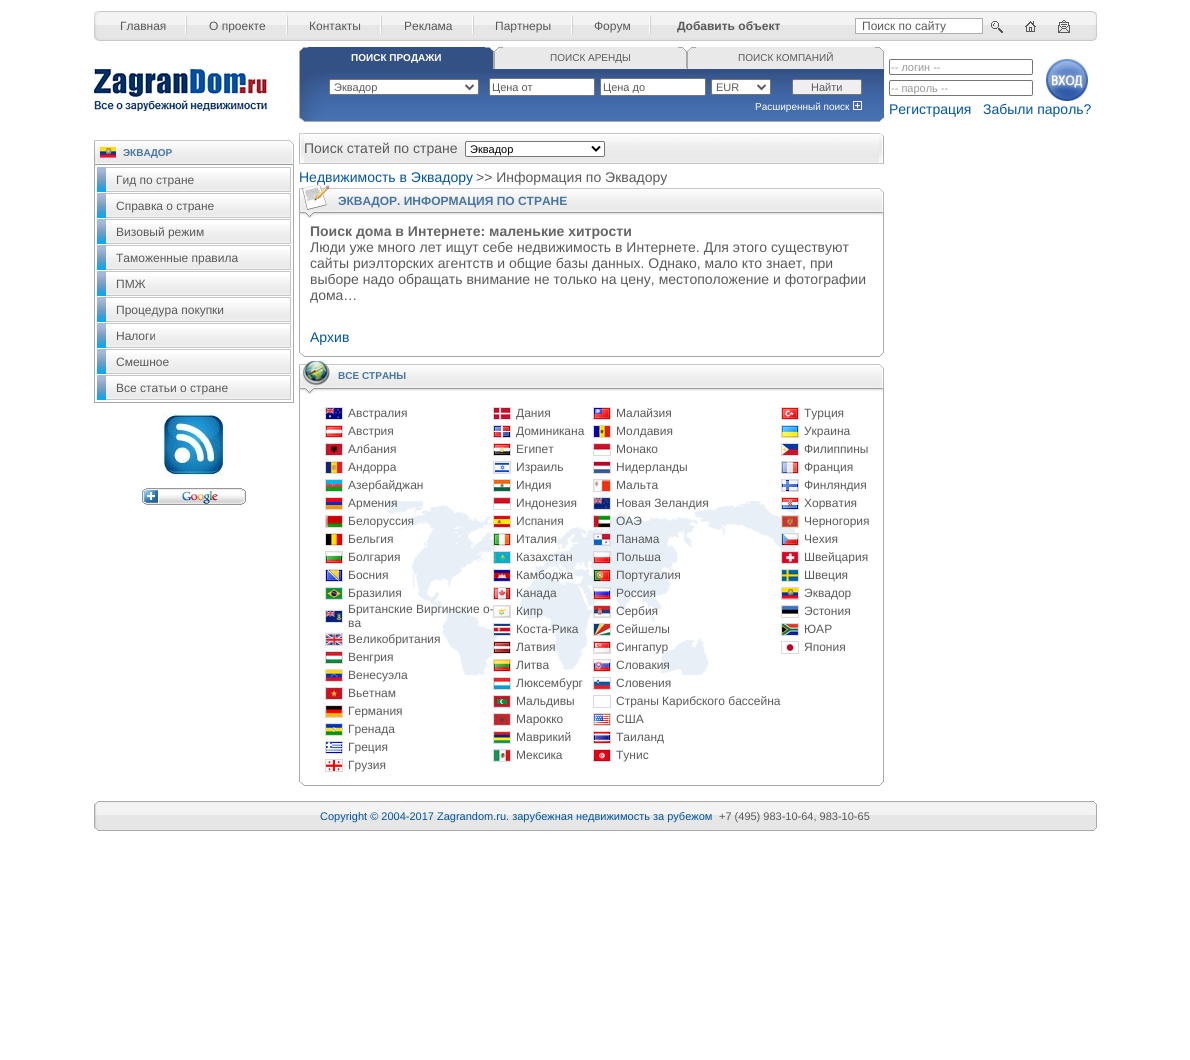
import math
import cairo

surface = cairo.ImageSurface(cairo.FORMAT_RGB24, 1190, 1060)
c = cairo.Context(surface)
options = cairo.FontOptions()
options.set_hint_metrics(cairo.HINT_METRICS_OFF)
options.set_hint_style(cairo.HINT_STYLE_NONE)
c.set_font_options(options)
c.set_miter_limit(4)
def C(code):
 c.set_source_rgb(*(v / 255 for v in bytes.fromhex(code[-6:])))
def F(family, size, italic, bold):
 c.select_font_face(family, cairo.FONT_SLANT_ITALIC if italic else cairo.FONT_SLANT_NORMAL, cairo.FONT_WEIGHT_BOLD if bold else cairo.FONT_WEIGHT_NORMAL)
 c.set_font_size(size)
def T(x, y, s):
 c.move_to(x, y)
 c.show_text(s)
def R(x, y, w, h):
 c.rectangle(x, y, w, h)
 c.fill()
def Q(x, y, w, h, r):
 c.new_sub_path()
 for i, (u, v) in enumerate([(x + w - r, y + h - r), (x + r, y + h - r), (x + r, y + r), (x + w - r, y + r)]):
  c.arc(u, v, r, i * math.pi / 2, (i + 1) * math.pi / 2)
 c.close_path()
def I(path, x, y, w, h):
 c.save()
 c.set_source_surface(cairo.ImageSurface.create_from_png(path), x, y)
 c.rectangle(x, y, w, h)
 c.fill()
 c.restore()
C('ffffff')
c.paint()
I('1.png',100,11,992,30)
I('2.png',94,11,6,30)
I('3.png',1092,11,5,30)
I('4.png',185,14,2,20)
F('Liberation Sans',12,0,0)
C('5a5a5a')
T(120,30,'Главная')
I('4.png',286,14,2,20)
T(209,30,'О проекте')
I('4.png',380,14,2,20)
T(309,30,'Контакты')
I('4.png',472,14,2,20)
T(404,30,'Реклама')
I('4.png',571,14,2,20)
T(495,30,'Партнеры')
I('4.png',649,14,2,20)
T(594,30,'Форум')
F('Liberation Sans',12,0,1)
T(677,30,'Добавить объект')
C('ffffff')
c.rectangle(855.5,18.5,127,15)
c.fill_preserve()
C('b1b1ab')
c.set_line_width(1)
c.stroke()
F('Liberation Sans',12,0,0)
C('5a5a5a')
T(862,30,'Поиск по сайту')
I('5.png',991,21,12,12)
I('6.png',1025,21,11,11)
I('7.png',1058,20,12,13)
I('8.png',94,69,173,42)
I('9.png',299,47,9,22)
C('345185')
R(308,47,177,22)
F('Liberation Sans',10,0,1)
C('ffffff')
T(351,61,'ПОИСК ПРОДАЖИ')
I('10.png',485,47,9,22)
I('11.png',494,47,9,22)
C('e9e9e9')
R(503,47,175,22)
F('Liberation Sans',10,0,0)
C('5a5a5a')
T(550,61,'ПОИСК АРЕНДЫ')
I('12.png',678,47,9,22)
I('11.png',687,47,9,22)
C('e9e9e9')
R(696,47,179,22)
C('5a5a5a')
T(738,61,'ПОИСК КОМПАНИЙ')
I('12.png',875,47,9,22)
I('13.png',299,69,585,52)
C('a9a9a9')
R(300,121,584,1)
I('14.png',299,118,5,4)
I('15.png',880,118,4,4)
C('ffffff')
Q(329.5,79.5,149,15,1.5)
c.fill_preserve()
C('767676')
c.stroke()
c.new_path()
c.move_to(465.5,85)
c.line_to(469.5,89)
c.line_to(473.5,85)
C('5a5a5a')
c.set_line_width(2)
c.stroke()
F('Liberation Sans',11,0,0)
T(334,91,'Эквадор')
C('ffffff')
Q(489.5,78.5,105,17,1.5)
c.fill_preserve()
C('767676')
c.set_line_width(1)
c.stroke()
C('5a5a5a')
T(492,91,'Цена от')
C('ffffff')
Q(600.5,78.5,105,17,1.5)
c.fill_preserve()
C('767676')
c.stroke()
c.save()
c.rectangle(603,81,100,12)
c.clip()
C('5a5a5a')
T(603,91,'Цена до')
c.restore()
C('ffffff')
Q(711.5,79.5,59,15,1.5)
c.fill_preserve()
C('767676')
c.stroke()
c.new_path()
c.move_to(757.5,85)
c.line_to(761.5,89)
c.line_to(765.5,85)
C('5a5a5a')
c.set_line_width(2)
c.stroke()
T(716,91,'EUR')
C('efefef')
Q(792.5,79.5,69,15,1.5)
c.fill_preserve()
C('767676')
c.set_line_width(1)
c.stroke()
C('5a5a5a')
T(811,91,'Найти')
F('Liberation Sans',10,0,0)
C('ffffff')
T(755,110,'Расширенный поиск')
I('16.png',853,101,9,9)
Q(889.5,59.5,143,15,1.5)
C('767676')
c.stroke()
F('Liberation Sans',11,0,0)
C('999999')
T(891,71,'-- логин --')
Q(889.5,80.5,143,15,1.5)
C('767676')
c.stroke()
C('999999')
T(891,92,'-- пароль --')
I('17.png',1046,59,42,42)
F('Liberation Sans',14,0,0)
C('0055a4')
T(889,114,'Регистрация')
T(983,114,'Забыли пароль?')
I('18.png',118,140,171,25)
I('19.png',289,140,5,27)
I('20.png',94,140,24,27)
I('21.png',100,147,16,11)
F('Liberation Sans',10,0,1)
C('4776a5')
T(123,156,'ЭКВАДОР')
C('a9a9a9')
R(293,167,1,235)
R(94,167,1,235)
C('a5bcdd')
R(97,167,9,1)
C('c5c5c5')
R(106,167,185,1)
I('22.png',97,168,9,24)
I('23.png',106,172,184,20)
F('Liberation Sans',12,0,0)
C('5a5a5a')
T(116,184,'Гид по стране')
C('c5c5c5')
R(290,168,1,24)
C('a5bcdd')
R(97,193,9,1)
C('c5c5c5')
R(106,193,185,1)
I('22.png',97,194,9,24)
I('23.png',106,198,184,20)
C('5a5a5a')
T(116,210,'Справка о стране')
C('c5c5c5')
R(290,194,1,24)
C('a5bcdd')
R(97,219,9,1)
C('c5c5c5')
R(106,219,185,1)
I('22.png',97,220,9,24)
I('23.png',106,224,184,20)
C('5a5a5a')
T(116,236,'Визовый режим')
C('c5c5c5')
R(290,220,1,24)
C('a5bcdd')
R(97,245,9,1)
C('c5c5c5')
R(106,245,185,1)
I('22.png',97,246,9,24)
I('23.png',106,250,184,20)
C('5a5a5a')
T(116,262,'Таможенные правила')
C('c5c5c5')
R(290,246,1,24)
C('a5bcdd')
R(97,271,9,1)
C('c5c5c5')
R(106,271,185,1)
I('22.png',97,272,9,24)
I('23.png',106,276,184,20)
C('5a5a5a')
T(116,288,'ПМЖ')
C('c5c5c5')
R(290,272,1,24)
C('a5bcdd')
R(97,297,9,1)
C('c5c5c5')
R(106,297,185,1)
I('22.png',97,298,9,24)
I('23.png',106,302,184,20)
C('5a5a5a')
T(116,314,'Процедура покупки')
C('c5c5c5')
R(290,298,1,24)
C('a5bcdd')
R(97,323,9,1)
C('c5c5c5')
R(106,323,185,1)
I('22.png',97,324,9,24)
I('23.png',106,328,184,20)
C('5a5a5a')
T(116,340,'Налоги')
C('c5c5c5')
R(290,324,1,24)
C('a5bcdd')
R(97,349,9,1)
C('c5c5c5')
R(106,349,185,1)
I('22.png',97,350,9,24)
I('23.png',106,354,184,20)
C('5a5a5a')
T(116,366,'Смешное')
C('c5c5c5')
R(290,350,1,24)
C('a5bcdd')
R(97,375,9,1)
C('c5c5c5')
R(106,375,185,1)
I('22.png',97,376,9,24)
I('23.png',106,380,184,20)
C('5a5a5a')
T(116,392,'Все статьи о стране')
C('c5c5c5')
R(290,376,1,24)
C('a9a9a9')
R(94,402,200,1)
I('24.png',163,413,61,64)
I('25.png',142,488,104,17)
C('b9b9b9')
R(299,162,1,1)
I('26.png',299,133,5,29)
I('27.png',304,133,575,30)
F('Liberation Sans',14,0,0)
C('5a5a5a')
T(304,153,'Поиск статей по стране')
C('ffffff')
Q(465.5,141.5,139,15,1.5)
c.fill_preserve()
C('767676')
c.stroke()
c.new_path()
c.move_to(592,146.5)
c.line_to(596,150.5)
c.line_to(600,146.5)
C('000000')
c.set_line_width(2)
c.stroke()
F('Liberation Sans',11,0,0)
T(470,153,'Эквадор')
I('28.png',879,133,5,30)
C('c5c5c5')
R(299,163,585,1)
F('Liberation Sans',14,0,0)
C('0055a4')
T(299,182,'Недвижимость в Эквадору')
C('5a5a5a')
T(476,182,'>> Информация по Эквадору')
I('29.png',329,188,550,27)
I('30.png',879,188,5,30)
I('31.png',299,185,30,33)
F('Liberation Sans',12,0,1)
C('4776a5')
T(338,205,'ЭКВАДОР. ИНФОРМАЦИЯ ПО СТРАНЕ')
C('a9a9a9')
R(883,218,1,135)
R(299,218,1,135)
F('Liberation Sans',14,0,1)
C('666666')
T(310,236,'Поиск дома в Интернете: маленькие хитрости')
F('Liberation Sans',14,0,0)
C('5a5a5a')
T(310,252,'Люди уже много лет ищут себе недвижимость в Интернете. Для этого существуют')
T(310,268,'сайты риэлторских агентств и общие базы данных. Однако, мало кто знает, при')
T(310,284,'выборе надо обращать внимание не только на цену, местоположение и фотографии')
T(310,300,'дома…')
C('0055a4')
T(310,342,'Архив')
C('a9a9a9')
R(299,356,585,1)
I('32.png',299,353,5,4)
I('33.png',880,353,4,4)
I('34.png',330,364,549,27)
I('30.png',879,364,5,30)
I('35.png',299,361,31,33)
F('Liberation Sans',10,0,1)
C('4776a5')
T(338,379,'ВСЕ СТРАНЫ')
I('36.png',388,501,407,174)
C('a9a9a9')
R(883,394,1,388)
R(299,394,1,388)
c.rectangle(325.5,407.5,17,12)
C('dadada')
c.set_line_width(1)
c.stroke()
I('37.png',326,408,16,11)
F('Liberation Sans',12,0,0)
C('5a5a5a')
T(348,417,'Австралия')
c.rectangle(325.5,425.5,17,12)
C('dadada')
c.stroke()
I('38.png',326,426,16,11)
C('5a5a5a')
T(348,435,'Австрия')
c.rectangle(325.5,443.5,17,12)
C('dadada')
c.stroke()
I('39.png',326,444,16,11)
C('5a5a5a')
T(348,453,'Албания')
c.rectangle(325.5,461.5,17,12)
C('dadada')
c.stroke()
I('40.png',326,462,16,11)
C('5a5a5a')
T(348,471,'Андорра')
c.rectangle(325.5,479.5,17,12)
C('dadada')
c.stroke()
I('41.png',326,480,16,11)
C('5a5a5a')
T(348,489,'Азербайджан')
c.rectangle(325.5,497.5,17,12)
C('dadada')
c.stroke()
I('42.png',326,498,16,11)
C('5a5a5a')
T(348,507,'Армения')
c.rectangle(325.5,515.5,17,12)
C('dadada')
c.stroke()
I('43.png',326,516,16,11)
C('5a5a5a')
T(348,525,'Белоруссия')
c.rectangle(325.5,533.5,17,12)
C('dadada')
c.stroke()
I('44.png',326,534,16,11)
C('5a5a5a')
T(348,543,'Бельгия')
c.rectangle(325.5,551.5,17,12)
C('dadada')
c.stroke()
I('45.png',326,552,16,11)
C('5a5a5a')
T(348,561,'Болгария')
c.rectangle(325.5,569.5,17,12)
C('dadada')
c.stroke()
I('46.png',326,570,16,11)
C('5a5a5a')
T(348,579,'Босния')
c.rectangle(325.5,587.5,17,12)
C('dadada')
c.stroke()
I('47.png',326,588,16,11)
C('5a5a5a')
T(348,597,'Бразилия')
c.rectangle(325.5,610.5,17,12)
C('dadada')
c.stroke()
I('48.png',326,611,16,11)
C('5a5a5a')
T(348,613,'Британские Виргинские о-')
T(348,627,'ва')
c.rectangle(325.5,633.5,17,12)
C('dadada')
c.stroke()
I('49.png',326,634,16,11)
C('5a5a5a')
T(348,643,'Великобритания')
c.rectangle(325.5,651.5,17,12)
C('dadada')
c.stroke()
I('50.png',326,652,16,11)
C('5a5a5a')
T(348,661,'Венгрия')
c.rectangle(325.5,669.5,17,12)
C('dadada')
c.stroke()
I('51.png',326,670,16,11)
C('5a5a5a')
T(348,679,'Венесуэла')
c.rectangle(325.5,687.5,17,12)
C('dadada')
c.stroke()
I('52.png',326,688,16,11)
C('5a5a5a')
T(348,697,'Вьетнам')
c.rectangle(325.5,705.5,17,12)
C('dadada')
c.stroke()
I('53.png',326,706,16,11)
C('5a5a5a')
T(348,715,'Германия')
c.rectangle(325.5,723.5,17,12)
C('dadada')
c.stroke()
I('54.png',326,724,16,11)
C('5a5a5a')
T(348,733,'Гренада')
c.rectangle(325.5,741.5,17,12)
C('dadada')
c.stroke()
I('55.png',326,742,16,11)
C('5a5a5a')
T(348,751,'Греция')
c.rectangle(325.5,759.5,17,12)
C('dadada')
c.stroke()
I('56.png',326,760,16,11)
C('5a5a5a')
T(348,769,'Грузия')
c.rectangle(493.5,407.5,17,12)
C('dadada')
c.stroke()
I('57.png',494,408,16,11)
C('5a5a5a')
T(516,417,'Дания')
c.rectangle(493.5,425.5,17,12)
C('dadada')
c.stroke()
I('58.png',494,426,16,11)
C('5a5a5a')
T(516,435,'Доминикана')
c.rectangle(493.5,443.5,17,12)
C('dadada')
c.stroke()
I('59.png',494,444,16,11)
C('5a5a5a')
T(516,453,'Египет')
c.rectangle(493.5,461.5,17,12)
C('dadada')
c.stroke()
I('60.png',494,462,16,11)
C('5a5a5a')
T(516,471,'Израиль')
c.rectangle(493.5,479.5,17,12)
C('dadada')
c.stroke()
I('61.png',494,480,16,11)
C('5a5a5a')
T(516,489,'Индия')
c.rectangle(493.5,497.5,17,12)
C('dadada')
c.stroke()
I('62.png',494,498,16,6)
C('5a5a5a')
T(516,507,'Индонезия')
c.rectangle(493.5,515.5,17,12)
C('dadada')
c.stroke()
I('63.png',494,516,16,11)
C('5a5a5a')
T(516,525,'Испания')
c.rectangle(493.5,533.5,17,12)
C('dadada')
c.stroke()
I('64.png',494,534,16,11)
C('5a5a5a')
T(516,543,'Италия')
c.rectangle(493.5,551.5,17,12)
C('dadada')
c.stroke()
I('65.png',494,552,16,11)
C('5a5a5a')
T(516,561,'Казахстан')
c.rectangle(493.5,569.5,17,12)
C('dadada')
c.stroke()
I('66.png',494,570,16,11)
C('5a5a5a')
T(516,579,'Камбоджа')
c.rectangle(493.5,587.5,17,12)
C('dadada')
c.stroke()
I('67.png',494,588,16,11)
C('5a5a5a')
T(516,597,'Канада')
c.rectangle(493.5,605.5,17,12)
C('dadada')
c.stroke()
I('68.png',494,606,16,11)
C('5a5a5a')
T(516,615,'Кипр')
c.rectangle(493.5,623.5,17,12)
C('dadada')
c.stroke()
I('69.png',494,624,16,11)
C('5a5a5a')
T(516,633,'Коста-Рика')
c.rectangle(493.5,641.5,17,12)
C('dadada')
c.stroke()
I('70.png',494,642,16,11)
C('5a5a5a')
T(516,651,'Латвия')
c.rectangle(493.5,659.5,17,12)
C('dadada')
c.stroke()
I('71.png',494,660,16,11)
C('5a5a5a')
T(516,669,'Литва')
c.rectangle(493.5,677.5,17,12)
C('dadada')
c.stroke()
I('72.png',494,678,16,11)
C('5a5a5a')
T(516,687,'Люксембург')
c.rectangle(493.5,695.5,17,12)
C('dadada')
c.stroke()
I('73.png',494,696,16,11)
C('5a5a5a')
T(516,705,'Мальдивы')
c.rectangle(493.5,713.5,17,12)
C('dadada')
c.stroke()
I('74.png',494,714,16,11)
C('5a5a5a')
T(516,723,'Марокко')
c.rectangle(493.5,731.5,17,12)
C('dadada')
c.stroke()
I('75.png',494,732,16,11)
C('5a5a5a')
T(516,741,'Маврикий')
c.rectangle(493.5,749.5,17,12)
C('dadada')
c.stroke()
I('76.png',494,750,16,11)
C('5a5a5a')
T(516,759,'Мексика')
c.rectangle(593.5,407.5,17,12)
C('dadada')
c.stroke()
I('77.png',594,408,16,11)
C('5a5a5a')
T(616,417,'Малайзия')
c.rectangle(593.5,425.5,17,12)
C('dadada')
c.stroke()
I('78.png',594,426,16,11)
C('5a5a5a')
T(616,435,'Молдавия')
c.rectangle(593.5,443.5,17,12)
C('dadada')
c.stroke()
I('79.png',594,444,16,6)
C('5a5a5a')
T(616,453,'Монако')
c.rectangle(593.5,461.5,17,12)
C('dadada')
c.stroke()
I('80.png',594,462,16,11)
C('5a5a5a')
T(616,471,'Нидерланды')
c.rectangle(593.5,479.5,17,12)
C('dadada')
c.stroke()
I('81.png',594,480,16,11)
C('5a5a5a')
T(616,489,'Мальта')
c.rectangle(593.5,497.5,17,12)
C('dadada')
c.stroke()
I('82.png',594,498,16,11)
C('5a5a5a')
T(616,507,'Новая Зеландия')
c.rectangle(593.5,515.5,17,12)
C('dadada')
c.stroke()
I('83.png',594,516,16,11)
C('5a5a5a')
T(616,525,'ОАЭ')
c.rectangle(593.5,533.5,17,12)
C('dadada')
c.stroke()
I('84.png',594,534,16,11)
C('5a5a5a')
T(616,543,'Панама')
c.rectangle(593.5,551.5,17,12)
C('dadada')
c.stroke()
I('85.png',594,552,16,11)
C('5a5a5a')
T(616,561,'Польша')
c.rectangle(593.5,569.5,17,12)
C('dadada')
c.stroke()
I('86.png',594,570,16,11)
C('5a5a5a')
T(616,579,'Португалия')
c.rectangle(593.5,587.5,17,12)
C('dadada')
c.stroke()
I('87.png',594,588,16,11)
C('5a5a5a')
T(616,597,'Россия')
c.rectangle(593.5,605.5,17,12)
C('dadada')
c.stroke()
I('88.png',594,606,16,11)
C('5a5a5a')
T(616,615,'Сербия')
c.rectangle(593.5,623.5,17,12)
C('dadada')
c.stroke()
I('89.png',594,624,16,11)
C('5a5a5a')
T(616,633,'Сейшелы')
c.rectangle(593.5,641.5,17,12)
C('dadada')
c.stroke()
I('90.png',594,642,16,11)
C('5a5a5a')
T(616,651,'Сингапур')
c.rectangle(593.5,659.5,17,12)
C('dadada')
c.stroke()
I('91.png',594,660,16,11)
C('5a5a5a')
T(616,669,'Словакия')
c.rectangle(593.5,677.5,17,12)
C('dadada')
c.stroke()
I('92.png',594,679,16,10)
C('5a5a5a')
T(616,687,'Словения')
c.rectangle(593.5,695.5,17,12)
C('dadada')
c.stroke()
C('5a5a5a')
T(616,705,'Страны Карибского бассейна')
c.rectangle(593.5,713.5,17,12)
C('dadada')
c.stroke()
I('93.png',594,714,16,11)
C('5a5a5a')
T(616,723,'США')
c.rectangle(593.5,731.5,17,12)
C('dadada')
c.stroke()
I('94.png',594,732,16,11)
C('5a5a5a')
T(616,741,'Таиланд')
c.rectangle(593.5,749.5,17,12)
C('dadada')
c.stroke()
I('95.png',594,750,16,11)
C('5a5a5a')
T(616,759,'Тунис')
c.rectangle(781.5,407.5,17,12)
C('dadada')
c.stroke()
I('96.png',782,408,16,11)
C('5a5a5a')
T(804,417,'Турция')
c.rectangle(781.5,425.5,17,12)
C('dadada')
c.stroke()
I('97.png',782,426,16,11)
C('5a5a5a')
T(804,435,'Украина')
c.rectangle(781.5,443.5,17,12)
C('dadada')
c.stroke()
I('98.png',782,444,16,11)
C('5a5a5a')
T(804,453,'Филиппины')
c.rectangle(781.5,461.5,17,12)
C('dadada')
c.stroke()
I('99.png',782,462,16,11)
C('5a5a5a')
T(804,471,'Франция')
c.rectangle(781.5,479.5,17,12)
C('dadada')
c.stroke()
I('100.png',782,480,16,11)
C('5a5a5a')
T(804,489,'Финляндия')
c.rectangle(781.5,497.5,17,12)
C('dadada')
c.stroke()
I('101.png',782,498,16,11)
C('5a5a5a')
T(804,507,'Хорватия')
c.rectangle(781.5,515.5,17,12)
C('dadada')
c.stroke()
I('102.png',782,516,16,11)
C('5a5a5a')
T(804,525,'Черногория')
c.rectangle(781.5,533.5,17,12)
C('dadada')
c.stroke()
I('103.png',782,534,16,11)
C('5a5a5a')
T(804,543,'Чехия')
c.rectangle(781.5,551.5,17,12)
C('dadada')
c.stroke()
I('104.png',782,552,16,11)
C('5a5a5a')
T(804,561,'Швейцария')
c.rectangle(781.5,569.5,17,12)
C('dadada')
c.stroke()
I('105.png',782,570,16,11)
C('5a5a5a')
T(804,579,'Швеция')
c.rectangle(781.5,587.5,17,12)
C('dadada')
c.stroke()
I('21.png',782,588,16,11)
C('5a5a5a')
T(804,597,'Эквадор')
c.rectangle(781.5,605.5,17,12)
C('dadada')
c.stroke()
I('106.png',782,606,16,8)
C('5a5a5a')
T(804,615,'Эстония')
c.rectangle(781.5,623.5,17,12)
C('dadada')
c.stroke()
I('107.png',782,624,16,11)
C('5a5a5a')
T(804,633,'ЮАР')
c.rectangle(781.5,641.5,17,12)
C('dadada')
c.stroke()
I('108.png',786,644,8,7)
C('5a5a5a')
T(804,651,'Япония')
C('a9a9a9')
R(299,785,585,1)
I('32.png',299,782,5,4)
I('33.png',880,782,4,4)
I('109.png',98,801,996,30)
I('110.png',1094,801,3,30)
I('111.png',94,801,4,30)
F('Liberation Sans',11,0,0)
C('0055a4')
T(320,820,'Copyright © 2004-2017 Zagrandom.ru. зарубежная недвижимость за рубежом')
C('5a5a5a')
T(719,820,'+7 (495) 983-10-64, 983-10-65')
surface.write_to_png('o.png')
